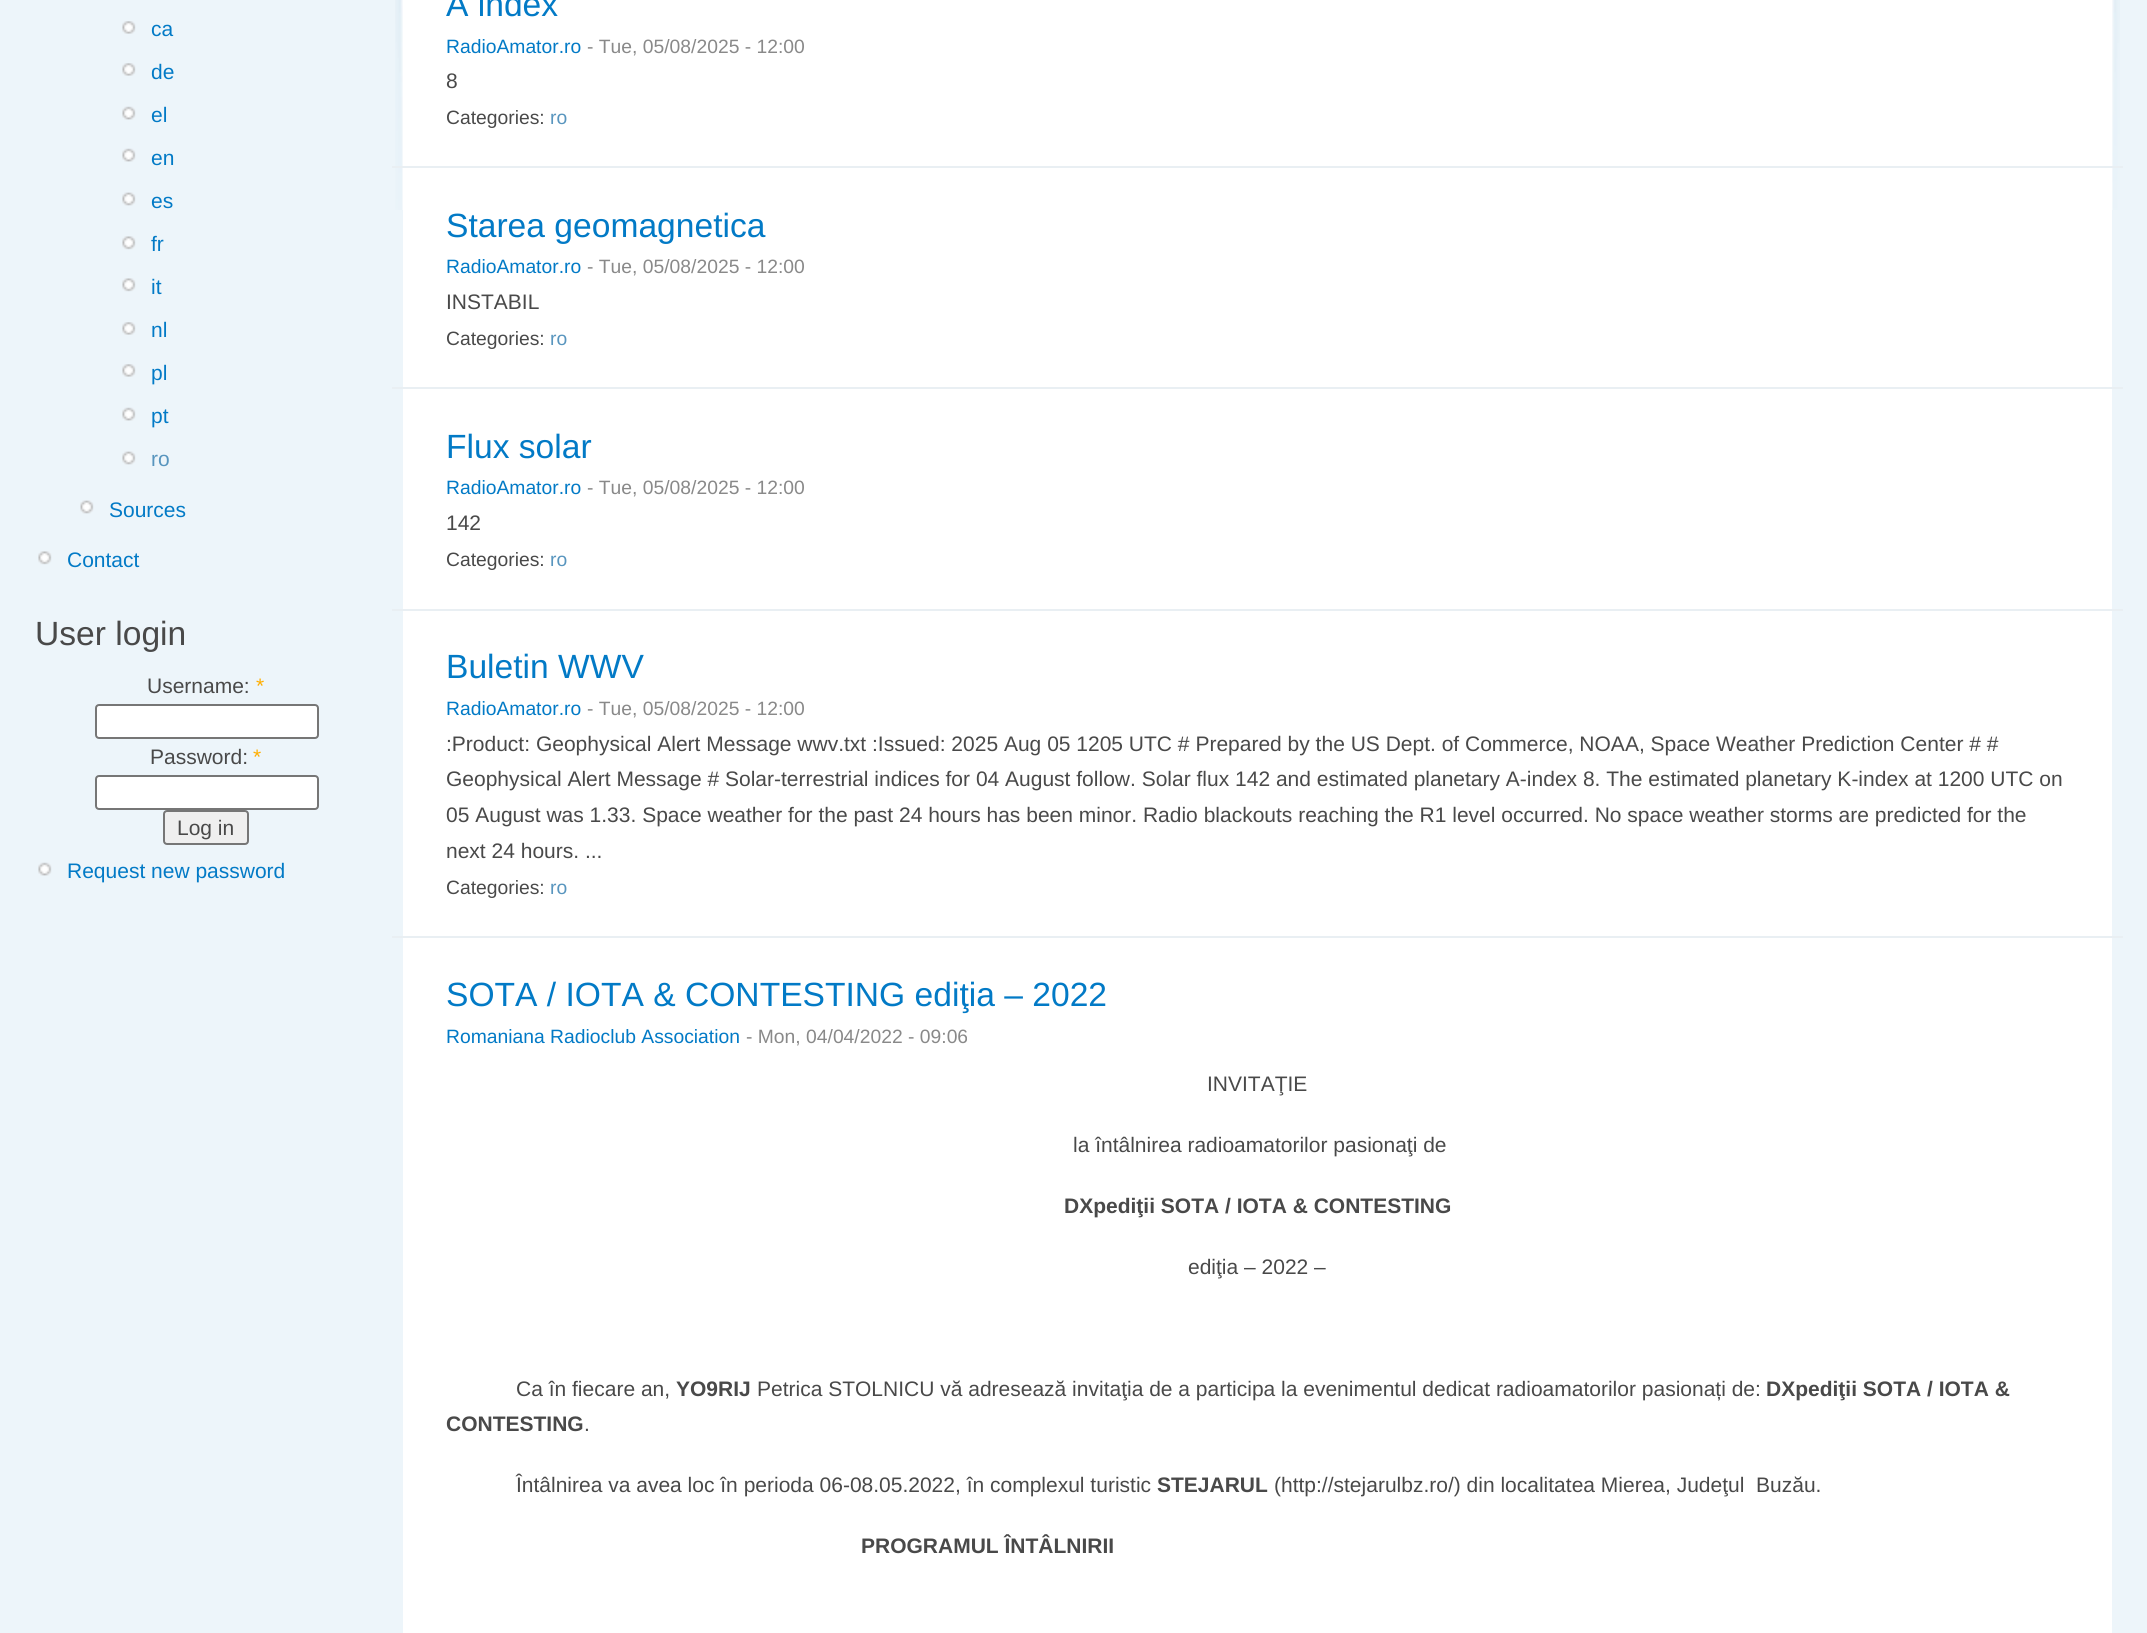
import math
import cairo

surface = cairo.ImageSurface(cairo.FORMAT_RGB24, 2147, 1633)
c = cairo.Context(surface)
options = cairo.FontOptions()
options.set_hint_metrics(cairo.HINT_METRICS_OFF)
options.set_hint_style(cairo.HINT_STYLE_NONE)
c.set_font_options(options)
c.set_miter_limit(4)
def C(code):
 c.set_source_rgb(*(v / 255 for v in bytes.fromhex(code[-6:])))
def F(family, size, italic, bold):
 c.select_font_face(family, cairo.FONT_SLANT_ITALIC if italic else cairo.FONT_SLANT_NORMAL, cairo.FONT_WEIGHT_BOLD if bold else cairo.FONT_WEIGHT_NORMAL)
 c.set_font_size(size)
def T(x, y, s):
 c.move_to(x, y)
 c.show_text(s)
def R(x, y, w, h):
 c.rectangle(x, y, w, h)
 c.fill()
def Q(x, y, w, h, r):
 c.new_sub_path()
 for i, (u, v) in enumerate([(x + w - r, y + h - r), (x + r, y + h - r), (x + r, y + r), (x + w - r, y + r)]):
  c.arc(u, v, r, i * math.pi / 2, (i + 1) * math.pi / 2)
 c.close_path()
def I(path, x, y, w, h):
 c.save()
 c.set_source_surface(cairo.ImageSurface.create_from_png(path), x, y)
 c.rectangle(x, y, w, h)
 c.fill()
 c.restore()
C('edf5fa')
c.paint()
I('1.png',122,21,14,13)
F('Liberation Sans',21,0,0)
C('027ac6')
T(151,36,'ca')
I('1.png',122,63,14,13)
T(151,79,'de')
I('2.png',122,106,14,14)
T(151,122,'el')
I('2.png',122,148,14,14)
T(151,165,'en')
I('3.png',122,192,14,14)
T(151,208,'es')
I('4.png',122,236,14,14)
T(151,251,'fr')
I('4.png',122,278,14,14)
T(151,294,'it')
I('1.png',122,322,14,13)
T(151,337,'nl')
I('1.png',122,364,14,13)
T(151,380,'pl')
I('2.png',122,407,14,14)
T(151,423,'pt')
I('3.png',122,451,14,14)
C('5895be')
T(151,466,'ro')
I('5.png',80,500,14,14)
C('027ac6')
T(109,517,'Sources')
I('4.png',38,551,14,14)
T(67,567,'Contact')
F('Liberation Sans',33.6,0,0)
C('494949')
T(35,645,'User login')
F('Liberation Sans',21,0,0)
T(147,693,'Username:')
C('ffae00')
T(256,693,'*')
C('ffffff')
Q(96,705,222,33,3)
c.fill_preserve()
C('767676')
c.stroke()
C('494949')
T(150,764,'Password:')
C('ffae00')
T(253,764,'*')
C('ffffff')
Q(96,776,222,33,3)
c.fill_preserve()
C('767676')
c.stroke()
C('efefef')
Q(164,811,84,33,3)
c.fill_preserve()
C('767676')
c.stroke()
C('494949')
T(177,835,'Log in')
I('2.png',38,862,14,14)
C('027ac6')
T(67,878,'Request new password')
C('ffffff')
R(403,0,1709,1633)
I('6.png',2112,0,8,210)
I('7.png',395,0,8,210)
C('e9eff3')
R(392,166,1731,2)
F('Liberation Sans',33.6,0,0)
C('027ac6')
T(446,16,'A index')
F('Liberation Sans',19.3,0,0)
T(446,53,'RadioAmator.ro')
C('898989')
T(587,53,'- Tue, 05/08/2025 - 12:00')
F('Liberation Sans',21,0,0)
C('494949')
T(446,88,'8')
F('Liberation Sans',19.3,0,0)
T(446,124,'Categories:')
C('5895be')
T(550,124,'ro')
C('e9eff3')
R(392,387,1731,2)
F('Liberation Sans',33.6,0,0)
C('027ac6')
T(446,237,'Starea geomagnetica')
F('Liberation Sans',19.3,0,0)
T(446,273,'RadioAmator.ro')
C('898989')
T(587,273,'- Tue, 05/08/2025 - 12:00')
F('Liberation Sans',21,0,0)
C('494949')
T(446,309,'INSTABIL')
F('Liberation Sans',19.3,0,0)
T(446,345,'Categories:')
C('5895be')
T(550,345,'ro')
C('e9eff3')
R(392,609,1731,2)
F('Liberation Sans',33.6,0,0)
C('027ac6')
T(446,458,'Flux solar')
F('Liberation Sans',19.3,0,0)
T(446,494,'RadioAmator.ro')
C('898989')
T(587,494,'- Tue, 05/08/2025 - 12:00')
F('Liberation Sans',21,0,0)
C('494949')
T(446,530,'142')
F('Liberation Sans',19.3,0,0)
T(446,566,'Categories:')
C('5895be')
T(550,566,'ro')
C('e9eff3')
R(392,936,1731,2)
F('Liberation Sans',33.6,0,0)
C('027ac6')
T(446,678,'Buletin WWV')
F('Liberation Sans',19.3,0,0)
T(446,715,'RadioAmator.ro')
C('898989')
T(587,715,'- Tue, 05/08/2025 - 12:00')
F('Liberation Sans',21,0,0)
C('494949')
T(446,751,':Product: Geophysical Alert Message wwv.txt :Issued: 2025 Aug 05 1205 UTC # Prepared by the US Dept. of Commerce, NOAA, Space Weather Prediction Center # #')
T(446,786,'Geophysical Alert Message # Solar-terrestrial indices for 04 August follow. Solar flux 142 and estimated planetary A-index 8. The estimated planetary K-index at 1200 UTC on')
T(446,822,'05 August was 1.33. Space weather for the past 24 hours has been minor. Radio blackouts reaching the R1 level occurred. No space weather storms are predicted for the')
T(446,858,'next 24 hours. ...')
F('Liberation Sans',19.3,0,0)
T(446,894,'Categories:')
C('5895be')
T(550,894,'ro')
F('Liberation Sans',33.6,0,0)
C('027ac6')
T(446,1006,'SOTA / IOTA & CONTESTING ediţia – 2022')
F('Liberation Sans',19.3,0,0)
T(446,1043,'Romaniana Radioclub Association')
C('898989')
T(746,1043,'- Mon, 04/04/2022 - 09:06')
F('Liberation Sans',21,0,0)
C('494949')
T(1207,1091,'INVITAŢIE')
T(1073,1152,'la întâlnirea radioamatorilor pasionaţi de')
F('Liberation Sans',21,0,1)
T(1064,1213,'DXpediţii SOTA / IOTA & CONTESTING')
F('Liberation Sans',21,0,0)
T(1188,1274,'ediţia – 2022 –')
T(516,1396,'Ca în fiecare an,')
F('Liberation Sans',21,0,1)
T(676,1396,'YO9RIJ')
F('Liberation Sans',21,0,0)
T(757,1396,'Petrica STOLNICU vă adresează invitaţia de a participa la evenimentul dedicat radioamatorilor pasionați de:')
F('Liberation Sans',21,0,1)
T(1766,1396,'DXpediţii SOTA / IOTA &')
T(446,1431,'CONTESTING')
F('Liberation Sans',21,0,0)
T(584,1431,'.')
T(516,1492,'Întâlnirea va avea loc în perioda 06-08.05.2022, în complexul turistic')
F('Liberation Sans',21,0,1)
T(1157,1492,'STEJARUL')
F('Liberation Sans',21,0,0)
T(1274,1492,'(http://stejarulbz.ro/) din localitatea Mierea, Judeţul  Buzău.')
F('Liberation Sans',21,0,1)
T(861,1553,'PROGRAMUL ÎNTÂLNIRII')
surface.write_to_png('o.png')
